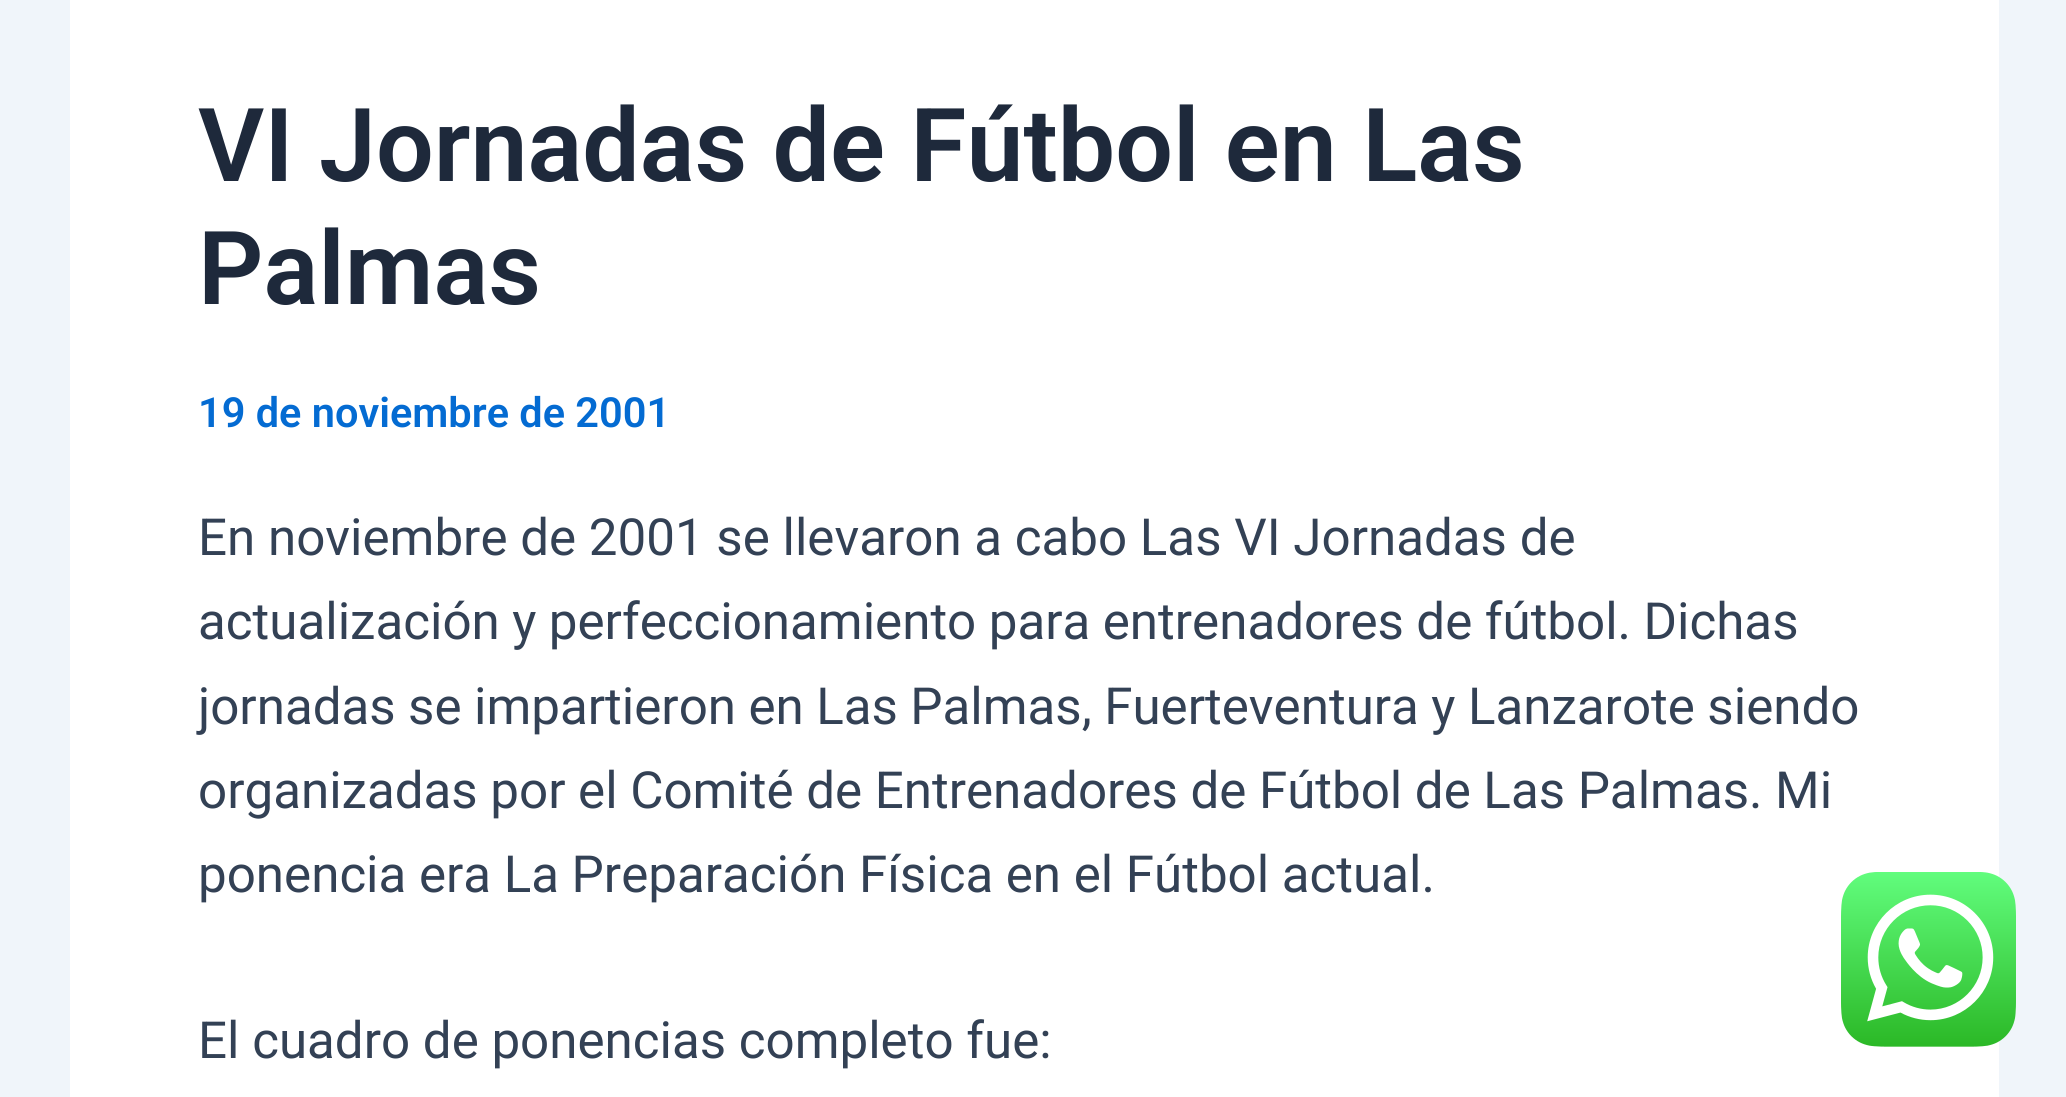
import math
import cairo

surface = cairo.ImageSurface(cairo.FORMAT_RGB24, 2066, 1097)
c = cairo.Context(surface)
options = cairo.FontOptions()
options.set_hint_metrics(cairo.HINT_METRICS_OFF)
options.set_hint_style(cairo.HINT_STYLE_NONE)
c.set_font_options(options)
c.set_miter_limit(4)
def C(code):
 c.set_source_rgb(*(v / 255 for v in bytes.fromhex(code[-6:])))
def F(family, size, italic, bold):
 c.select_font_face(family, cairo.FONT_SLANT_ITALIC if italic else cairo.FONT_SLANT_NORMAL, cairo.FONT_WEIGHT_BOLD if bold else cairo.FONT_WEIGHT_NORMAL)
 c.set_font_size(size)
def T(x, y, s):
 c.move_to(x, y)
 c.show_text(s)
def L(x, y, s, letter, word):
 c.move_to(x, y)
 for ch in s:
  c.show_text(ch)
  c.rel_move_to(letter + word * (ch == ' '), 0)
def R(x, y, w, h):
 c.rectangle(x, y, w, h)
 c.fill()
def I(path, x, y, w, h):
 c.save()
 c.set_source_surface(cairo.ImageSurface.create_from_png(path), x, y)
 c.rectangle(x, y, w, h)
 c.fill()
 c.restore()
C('f0f5fa')
c.paint()
C('ffffff')
R(70,0,1929,1097)
F('Roboto SemiBold',102.1,0,0)
C('1e293b')
T(198,181,'VI Jornadas de Fútbol en Las')
T(198,304,'Palmas')
F('Roboto SemiBold',41.5,0,0)
C('046bd2')
T(198,427,'19 de noviembre de 2001')
F('Roboto',51.1,0,0)
C('334155')
T(198,555,'En noviembre de 2001 se llevaron a cabo Las VI Jornadas de')
L(198,639,'actualización y perfeccionamiento para entrenadores de fútbol. Dichas',0,-.25)
L(198,724,'jornadas se impartieron en Las Palmas, Fuerteventura y Lanzarote siendo',0,-.25)
L(198,808,'organizadas por el Comité de Entrenadores de Fútbol de Las Palmas. Mi',0,-.1)
L(198,892,'ponencia era La Preparación Física en el Fútbol actual.',0,-.1)
T(198,1058,'El cuadro de ponencias completo fue:')
I('1.png',1841,872,175,175)
surface.write_to_png('o.png')
